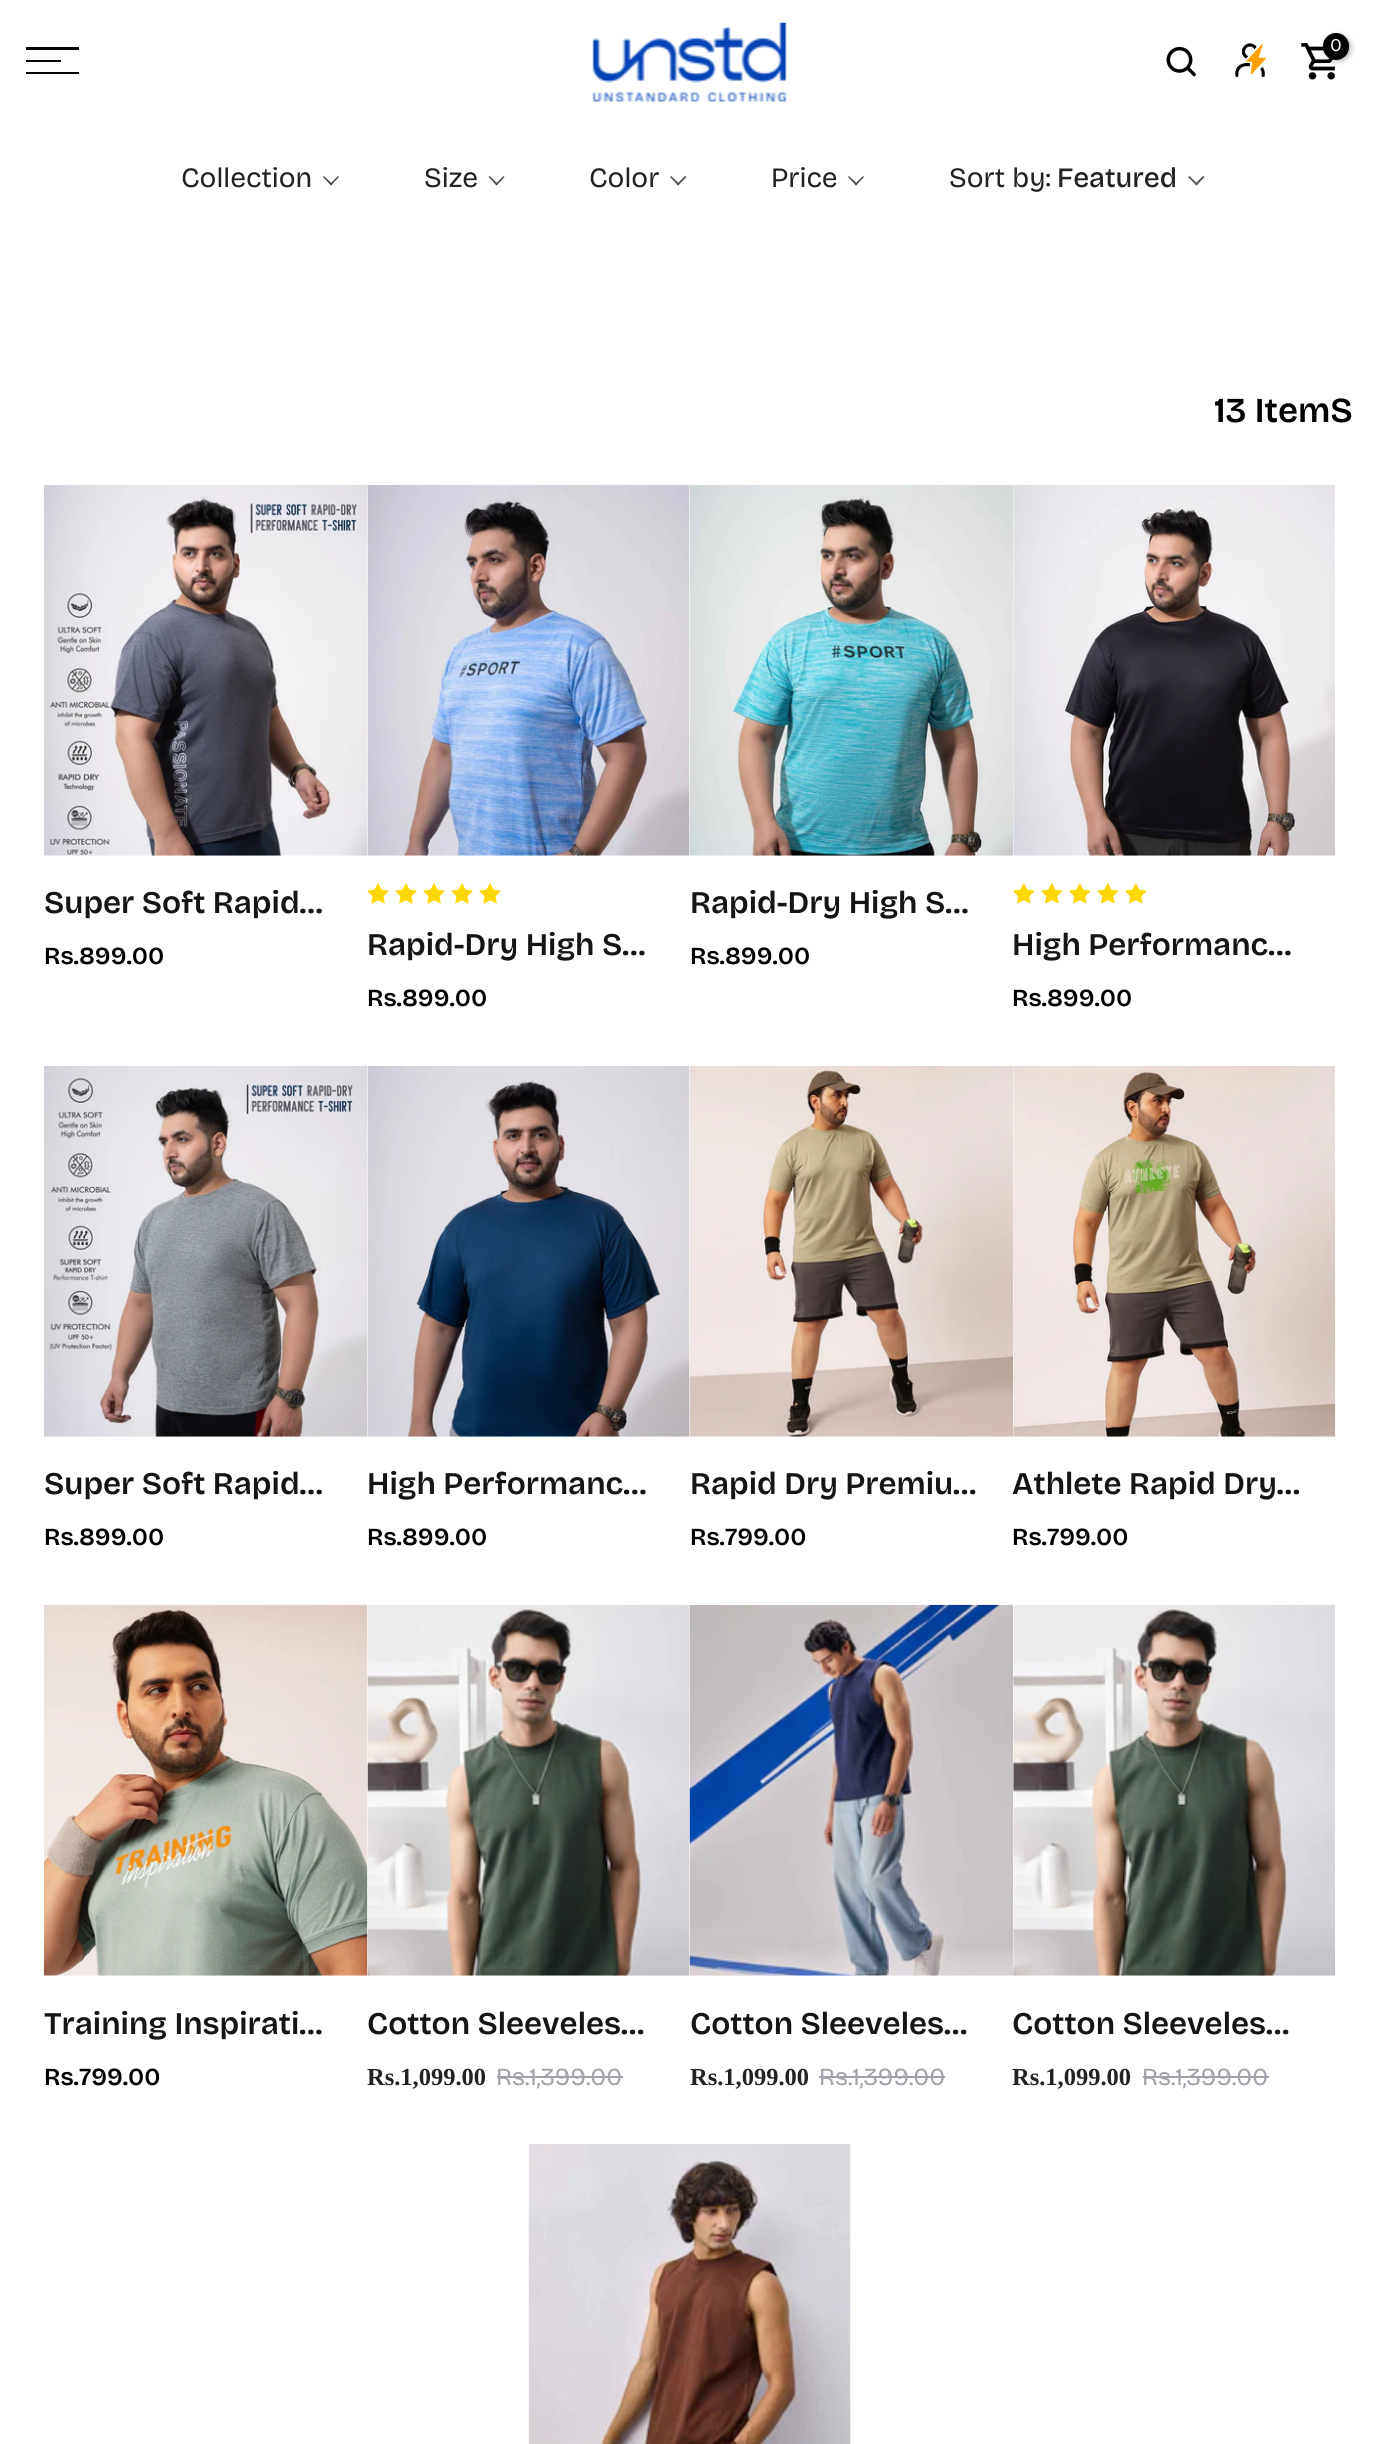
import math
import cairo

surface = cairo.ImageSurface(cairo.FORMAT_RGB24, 1378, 2444)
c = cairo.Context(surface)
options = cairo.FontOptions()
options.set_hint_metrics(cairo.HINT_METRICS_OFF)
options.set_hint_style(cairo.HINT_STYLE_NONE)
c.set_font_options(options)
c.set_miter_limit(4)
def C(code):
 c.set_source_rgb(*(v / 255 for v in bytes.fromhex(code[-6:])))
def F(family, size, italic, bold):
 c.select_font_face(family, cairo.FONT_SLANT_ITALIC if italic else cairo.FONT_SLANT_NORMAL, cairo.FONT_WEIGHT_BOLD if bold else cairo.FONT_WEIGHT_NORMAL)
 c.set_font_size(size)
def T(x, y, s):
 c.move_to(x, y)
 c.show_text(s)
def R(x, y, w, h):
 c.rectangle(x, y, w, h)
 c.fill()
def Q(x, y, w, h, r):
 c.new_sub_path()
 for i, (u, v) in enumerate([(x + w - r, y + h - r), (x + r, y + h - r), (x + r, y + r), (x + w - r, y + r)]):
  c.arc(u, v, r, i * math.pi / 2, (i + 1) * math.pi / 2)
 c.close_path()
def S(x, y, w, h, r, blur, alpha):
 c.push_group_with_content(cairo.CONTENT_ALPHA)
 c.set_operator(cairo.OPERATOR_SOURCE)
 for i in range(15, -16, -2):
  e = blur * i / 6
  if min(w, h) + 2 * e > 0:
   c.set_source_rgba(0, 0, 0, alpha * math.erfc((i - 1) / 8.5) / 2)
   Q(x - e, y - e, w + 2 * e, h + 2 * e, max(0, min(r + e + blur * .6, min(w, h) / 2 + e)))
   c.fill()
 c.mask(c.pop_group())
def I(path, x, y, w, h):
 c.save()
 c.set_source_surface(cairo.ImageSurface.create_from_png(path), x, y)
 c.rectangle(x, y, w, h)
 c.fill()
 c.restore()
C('ffffff')
c.paint()
I('1.png',592,22,195,80)
I('2.png',1166,46,30,31)
I('3.png',1235,43,31,35)
I('4.png',1301,43,34,37)
C('000000')
S(1325,35,26,26,13,2.5,.3)
C('000000')
Q(1323,33,26,27,13)
c.fill()
F('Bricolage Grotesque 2',18,0,0)
C('ffffff')
T(1330,51,'0')
C('000000')
R(26,47,53,3)
R(26,60,35,2)
R(26,72,53,2)
F('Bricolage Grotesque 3',28,0,0)
C('222222')
T(181,187,'Collection')
C('4e4e4e')
c.new_path()
c.move_to(338,176)
c.line_to(339,177)
c.line_to(331,185.5)
c.line_to(330,184)
c.close_path()
c.fill()
c.new_path()
c.move_to(324,176)
c.line_to(332.5,184)
c.line_to(331,185.5)
c.line_to(323,177)
c.close_path()
c.fill()
C('222222')
T(424,187,'Size')
C('4e4e4e')
c.new_path()
c.move_to(503.5,176)
c.line_to(504.5,177)
c.line_to(496.5,185.5)
c.line_to(495.5,184)
c.close_path()
c.fill()
c.new_path()
c.move_to(489.5,176)
c.line_to(498,184)
c.line_to(496.5,185.5)
c.line_to(488.5,177)
c.close_path()
c.fill()
C('222222')
T(589,187,'Color')
C('4e4e4e')
c.new_path()
c.move_to(685,176)
c.line_to(686.5,177)
c.line_to(678,185.5)
c.line_to(677,184)
c.close_path()
c.fill()
c.new_path()
c.move_to(671,176)
c.line_to(679.5,184)
c.line_to(678,185.5)
c.line_to(670,177)
c.close_path()
c.fill()
C('222222')
T(771,187,'Price')
C('4e4e4e')
c.new_path()
c.move_to(863,176)
c.line_to(864,177)
c.line_to(856,185.5)
c.line_to(855,184)
c.close_path()
c.fill()
c.new_path()
c.move_to(849,176)
c.line_to(857.5,184)
c.line_to(856,185.5)
c.line_to(848,177)
c.close_path()
c.fill()
C('222222')
T(949,187,'Sort by:')
F('Bricolage Grotesque Medium',28,0,0)
T(1057,187,'Featured')
C('4e4e4e')
c.new_path()
c.move_to(1203,176)
c.line_to(1204.5,177)
c.line_to(1196.5,185.5)
c.line_to(1195,184)
c.close_path()
c.fill()
c.new_path()
c.move_to(1189.5,176)
c.line_to(1197.5,184)
c.line_to(1196.5,185.5)
c.line_to(1188,177)
c.close_path()
c.fill()
F('Bricolage Grotesque SemiBold',35,0,0)
C('000000')
T(1214,422,'13 ItemS')
I('5.png',44,485,324,371)
F('Bricolage Grotesque 3 SemiBold',31.5,0,0)
C('151518')
T(44,913,'Super Soft Rapid…')
F('Bricolage Grotesque 2 SemiBold',24.5,0,0)
C('000000')
T(44,964,'Rs.899.00')
I('6.png',367,484,323,372)
I('7.png',367,883,22,21)
I('7.png',395,883,22,21)
I('7.png',423,883,22,21)
I('7.png',451,883,22,21)
I('7.png',479,883,22,21)
F('Bricolage Grotesque 3 SemiBold',31.5,0,0)
C('151518')
T(367,955,'Rapid-Dry High S…')
F('Bricolage Grotesque 2 SemiBold',24.5,0,0)
C('000000')
T(367,1006,'Rs.899.00')
I('8.png',689,485,324,371)
F('Bricolage Grotesque 3 SemiBold',31.5,0,0)
C('151518')
T(690,913,'Rapid-Dry High S…')
F('Bricolage Grotesque 2 SemiBold',24.5,0,0)
C('000000')
T(690,964,'Rs.899.00')
I('9.png',1013,485,322,371)
I('10.png',1013,883,22,21)
I('10.png',1041,883,22,21)
I('10.png',1069,883,22,21)
I('10.png',1097,883,22,21)
I('10.png',1125,883,22,21)
F('Bricolage Grotesque 3 SemiBold',31.5,0,0)
C('151518')
T(1012,955,'High Performanc…')
F('Bricolage Grotesque 2 SemiBold',24.5,0,0)
C('000000')
T(1012,1006,'Rs.899.00')
I('11.png',44,1066,324,371)
F('Bricolage Grotesque 3 SemiBold',31.5,0,0)
C('151518')
T(44,1494,'Super Soft Rapid…')
F('Bricolage Grotesque 2 SemiBold',24.5,0,0)
C('000000')
T(44,1545,'Rs.899.00')
I('12.png',367,1066,323,371)
F('Bricolage Grotesque 3 SemiBold',31.5,0,0)
C('151518')
T(367,1494,'High Performanc…')
F('Bricolage Grotesque 2 SemiBold',24.5,0,0)
C('000000')
T(367,1545,'Rs.899.00')
I('13.png',689,1066,325,371)
F('Bricolage Grotesque 3 SemiBold',31.5,0,0)
C('151518')
T(690,1494,'Rapid Dry Premiu…')
F('Bricolage Grotesque 2 SemiBold',24.5,0,0)
C('000000')
T(690,1545,'Rs.799.00')
I('14.png',1013,1066,323,371)
F('Bricolage Grotesque 3 SemiBold',31.5,0,0)
C('151518')
T(1012,1494,'Athlete Rapid Dry…')
F('Bricolage Grotesque 2 SemiBold',24.5,0,0)
C('000000')
T(1012,1545,'Rs.799.00')
I('15.png',43,1604,325,372)
F('Bricolage Grotesque 3 SemiBold',31.5,0,0)
C('151518')
T(44,2034,'Training Inspirati…')
F('Bricolage Grotesque 2 SemiBold',24.5,0,0)
C('000000')
T(44,2085,'Rs.799.00')
I('16.png',367,1605,323,371)
F('Bricolage Grotesque 3 SemiBold',31.5,0,0)
C('151518')
T(367,2034,'Cotton Sleeveles…')
F('Liberation Serif',24.5,0,1)
C('222222')
T(367,2085,'Rs.1,099.00')
F('Bricolage Grotesque',24.5,0,0)
C('a1a1aa')
T(496,2085,'Rs.1,399.00')
R(497,2076,126,2)
I('17.png',689,1604,325,372)
F('Bricolage Grotesque 3 SemiBold',31.5,0,0)
C('151518')
T(690,2034,'Cotton Sleeveles…')
F('Liberation Serif',24.5,0,1)
C('222222')
T(690,2085,'Rs.1,099.00')
F('Bricolage Grotesque',24.5,0,0)
C('a1a1aa')
T(819,2085,'Rs.1,399.00')
R(819,2076,126,2)
I('18.png',1013,1605,323,371)
F('Bricolage Grotesque 3 SemiBold',31.5,0,0)
C('151518')
T(1012,2034,'Cotton Sleeveles…')
F('Liberation Serif',24.5,0,1)
C('222222')
T(1012,2085,'Rs.1,099.00')
F('Bricolage Grotesque',24.5,0,0)
C('a1a1aa')
T(1142,2085,'Rs.1,399.00')
R(1143,2076,126,2)
I('19.png',528,2144,323,300)
surface.write_to_png('o.png')
